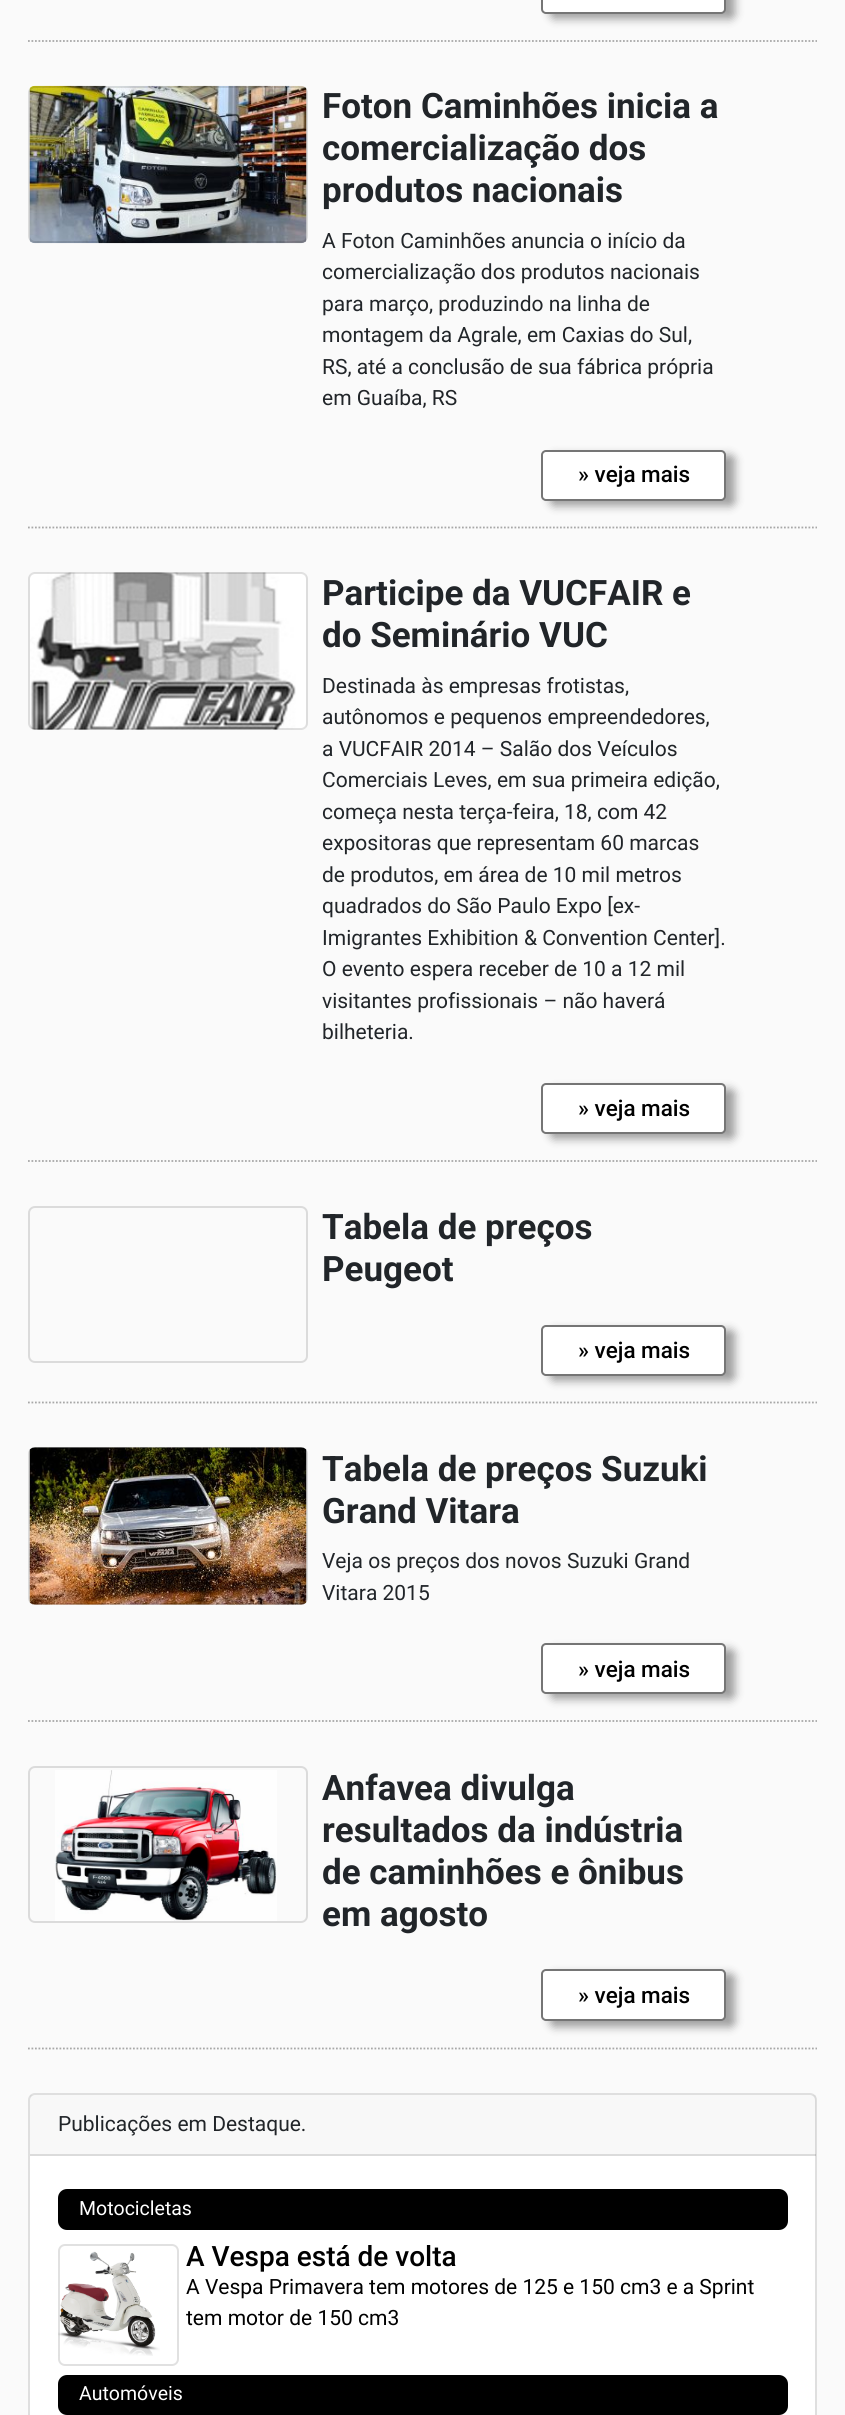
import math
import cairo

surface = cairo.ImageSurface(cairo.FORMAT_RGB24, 845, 2415)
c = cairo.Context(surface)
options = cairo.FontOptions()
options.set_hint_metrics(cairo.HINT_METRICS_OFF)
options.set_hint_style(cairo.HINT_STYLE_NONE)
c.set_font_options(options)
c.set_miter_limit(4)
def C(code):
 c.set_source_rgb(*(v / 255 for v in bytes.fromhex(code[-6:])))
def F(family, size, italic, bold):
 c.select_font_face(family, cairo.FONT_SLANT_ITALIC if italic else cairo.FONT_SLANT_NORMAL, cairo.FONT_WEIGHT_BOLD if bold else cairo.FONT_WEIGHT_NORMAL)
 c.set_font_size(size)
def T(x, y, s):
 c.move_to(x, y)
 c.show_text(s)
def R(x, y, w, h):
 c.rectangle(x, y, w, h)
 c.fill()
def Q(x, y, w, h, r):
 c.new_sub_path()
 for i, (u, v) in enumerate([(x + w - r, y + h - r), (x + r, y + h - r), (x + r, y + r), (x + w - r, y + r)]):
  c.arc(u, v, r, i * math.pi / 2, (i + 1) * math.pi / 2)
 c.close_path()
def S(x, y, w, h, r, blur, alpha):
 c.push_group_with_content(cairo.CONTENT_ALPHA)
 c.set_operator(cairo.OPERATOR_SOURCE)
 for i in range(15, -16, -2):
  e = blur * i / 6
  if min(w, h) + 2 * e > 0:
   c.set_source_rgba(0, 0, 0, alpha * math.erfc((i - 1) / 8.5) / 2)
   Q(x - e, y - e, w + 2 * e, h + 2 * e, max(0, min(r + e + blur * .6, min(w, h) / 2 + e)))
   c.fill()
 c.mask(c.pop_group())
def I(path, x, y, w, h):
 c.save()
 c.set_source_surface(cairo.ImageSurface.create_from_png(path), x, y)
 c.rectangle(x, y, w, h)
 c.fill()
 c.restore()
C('fafafa')
c.paint()
c.new_path()
c.move_to(28,41)
c.line_to(817,41)
C('a7a7a7')
c.set_line_width(1.8)
c.set_dash([1.75,1.75])
c.stroke()
C('000000')
S(550,-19,185,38,5,4.5,.37)
C('ffffff')
Q(542,-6,183,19,4)
c.fill_preserve()
C('757575')
c.set_line_width(2)
c.set_dash([])
c.stroke()
c.new_path()
c.move_to(28,527.5)
c.line_to(817,527.5)
C('a7a7a7')
c.set_line_width(1.8)
c.set_dash([1.75,1.75])
c.stroke()
I('1.png',29,85,278,159)
Q(29,87,278,155,6)
c.set_source_rgba(0,0,0,0.12)
c.set_line_width(2)
c.set_dash([])
c.stroke()
F('Roboto',35,0,1)
C('212529')
T(322,118,'Foton Caminhões inicia a')
T(322,160,'comercialização dos')
T(322,202,'produtos nacionais')
F('Roboto',21,0,0)
T(322,248,'A Foton Caminhões anuncia o início da')
T(322,279,'comercialização dos produtos nacionais')
T(322,311,'para março, produzindo na linha de')
T(322,342,'montagem da Agrale, em Caxias do Sul,')
T(322,374,'RS, até a conclusão de sua fábrica própria')
T(322,405,'em Guaíba, RS')
C('000000')
S(550,455,185,51,5,4.5,.37)
C('ffffff')
Q(542,451,183,49,4)
c.fill_preserve()
C('757575')
c.stroke()
F('Roboto Medium',22.5,0,0)
C('000000')
T(578,482,'» veja mais')
c.new_path()
c.move_to(28,1161)
c.line_to(817,1161)
C('a7a7a7')
c.set_line_width(1.8)
c.set_dash([1.75,1.75])
c.stroke()
I('2.png',30,572,276,158)
Q(29,573,278,156,6)
c.set_source_rgba(0,0,0,0.12)
c.set_line_width(2)
c.set_dash([])
c.stroke()
F('Roboto',35,0,1)
C('212529')
T(322,605,'Participe da VUCFAIR e')
T(322,647,'do Seminário VUC')
F('Roboto',21,0,0)
T(322,693,'Destinada às empresas frotistas,')
T(322,724,'autônomos e pequenos empreendedores,')
T(322,756,'a VUCFAIR 2014 – Salão dos Veículos')
T(322,787,'Comerciais Leves, em sua primeira edição,')
T(322,819,'começa nesta terça-feira, 18, com 42')
T(322,850,'expositoras que representam 60 marcas')
T(322,882,'de produtos, em área de 10 mil metros')
T(322,913,'quadrados do São Paulo Expo [ex-')
T(322,945,'Imigrantes Exhibition & Convention Center].')
T(322,976,'O evento espera receber de 10 a 12 mil')
T(322,1008,'visitantes profissionais – não haverá')
T(322,1039,'bilheteria.')
C('000000')
S(550,1089,185,50,5,4.5,.37)
C('ffffff')
Q(542,1084,183,49,4)
c.fill_preserve()
C('757575')
c.stroke()
F('Roboto Medium',22.5,0,0)
C('000000')
T(578,1116,'» veja mais')
c.new_path()
c.move_to(28,1402.5)
c.line_to(817,1402.5)
C('a7a7a7')
c.set_line_width(1.8)
c.set_dash([1.75,1.75])
c.stroke()
Q(29,1207,278,155,6)
C('dbdbdb')
c.set_line_width(2)
c.set_dash([])
c.stroke()
F('Roboto',35,0,1)
C('212529')
T(322,1239,'Tabela de preços')
T(322,1281,'Peugeot')
C('000000')
S(550,1330,185,51,5,4.5,.37)
C('ffffff')
Q(542,1326,183,49,4)
c.fill_preserve()
C('757575')
c.stroke()
F('Roboto Medium',22.5,0,0)
C('000000')
T(578,1358,'» veja mais')
c.new_path()
c.move_to(28,1721)
c.line_to(817,1721)
C('a7a7a7')
c.set_line_width(1.8)
c.set_dash([1.75,1.75])
c.stroke()
I('3.png',29,1447,278,158)
Q(29,1448,278,156,6)
c.set_source_rgba(0,0,0,0.12)
c.set_line_width(2)
c.set_dash([])
c.stroke()
F('Roboto',35,0,1)
C('212529')
T(322,1481,'Tabela de preços Suzuki')
T(322,1523,'Grand Vitara')
F('Roboto',21,0,0)
T(322,1568,'Veja os preços dos novos Suzuki Grand')
T(322,1600,'Vitara 2015')
C('000000')
S(550,1649,185,50,5,4.5,.37)
C('ffffff')
Q(542,1644,183,49,4)
c.fill_preserve()
C('757575')
c.stroke()
F('Roboto Medium',22.5,0,0)
C('000000')
T(578,1677,'» veja mais')
c.new_path()
c.move_to(28,2048.5)
c.line_to(817,2048.5)
C('a7a7a7')
c.set_line_width(1.8)
c.set_dash([1.75,1.75])
c.stroke()
I('4.png',55,1770,222,151)
Q(29,1767,278,155,6)
C('dbdbdb')
c.set_line_width(2)
c.set_dash([])
c.stroke()
F('Roboto',35,0,1)
C('212529')
T(322,1800,'Anfavea divulga')
T(322,1842,'resultados da indústria')
T(322,1884,'de caminhões e ônibus')
T(322,1926,'em agosto')
C('000000')
S(550,1974,185,53,5,4.5,.37)
C('ffffff')
Q(542,1970,183,50,4)
c.fill_preserve()
C('757575')
c.stroke()
F('Roboto Medium',22.5,0,0)
C('000000')
T(578,2003,'» veja mais')
C('ffffff')
Q(29,2094,787,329,6)
c.fill_preserve()
C('dfdfdf')
c.stroke()
c.set_source_rgba(0,0,0,0.03)
R(30,2095,786,61)
c.set_source_rgba(0,0,0,0.12)
R(30,2154,786,2)
F('Roboto',21,0,0)
C('212529')
T(58,2131,'Publicações em Destaque.')
C('000000')
Q(58,2189,730,41,9)
c.fill()
F('Roboto',19.5,0,0)
C('ffffff')
T(79,2215,'Motocicletas')
I('5.png',58,2251,102,105)
Q(59,2245,119,120,6)
c.set_source_rgba(0,0,0,0.12)
c.stroke()
F('Roboto Medium',28,0,0)
C('000000')
T(186,2266,'A Vespa está de volta')
F('Roboto',21,0,0)
T(186,2294,'A Vespa Primavera tem motores de 125 e 150 cm3 e a Sprint')
T(186,2325,'tem motor de 150 cm3')
Q(58,2375,730,40,9)
c.fill()
F('Roboto',19.5,0,0)
C('ffffff')
T(79,2400,'Automóveis')
surface.write_to_png('o.png')
